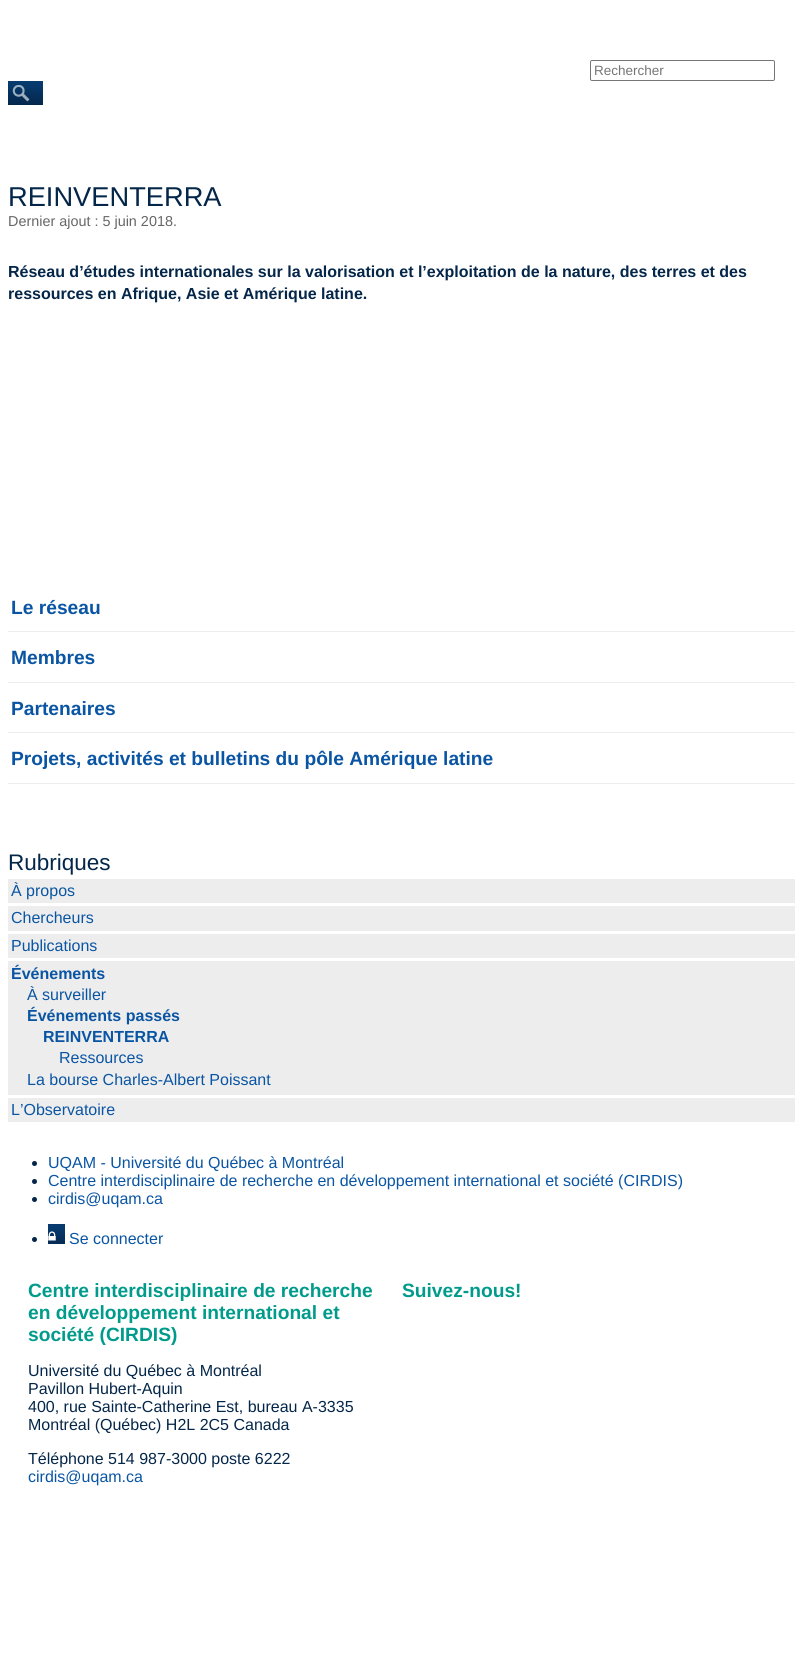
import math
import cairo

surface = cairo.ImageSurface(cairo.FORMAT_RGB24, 803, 1657)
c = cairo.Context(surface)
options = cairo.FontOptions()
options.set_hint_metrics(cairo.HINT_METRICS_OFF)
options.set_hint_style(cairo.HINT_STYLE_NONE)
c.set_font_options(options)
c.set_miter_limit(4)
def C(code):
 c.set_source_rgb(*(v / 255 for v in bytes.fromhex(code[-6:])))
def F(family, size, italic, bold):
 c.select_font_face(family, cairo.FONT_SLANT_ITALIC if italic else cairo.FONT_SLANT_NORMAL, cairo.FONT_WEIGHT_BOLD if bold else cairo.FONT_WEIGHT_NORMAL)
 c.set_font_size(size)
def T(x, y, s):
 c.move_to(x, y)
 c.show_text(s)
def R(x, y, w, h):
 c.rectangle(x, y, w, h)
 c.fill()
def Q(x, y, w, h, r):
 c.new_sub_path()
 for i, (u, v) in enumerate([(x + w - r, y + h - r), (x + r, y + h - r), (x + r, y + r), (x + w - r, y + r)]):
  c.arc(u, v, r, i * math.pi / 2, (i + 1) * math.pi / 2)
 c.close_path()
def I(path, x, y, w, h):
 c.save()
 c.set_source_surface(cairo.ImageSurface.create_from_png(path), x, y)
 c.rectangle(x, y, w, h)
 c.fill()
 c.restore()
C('ffffff')
c.paint()
Q(590.5,60.5,184,20,1.5)
C('767676')
c.set_line_width(1)
c.stroke()
F('Liberation Sans',13.5,0,0)
C('757575')
T(594,75,'Rechercher')
I('1.png',8,81,35,24)
F('Liberation Sans',27.25,0,0)
C('042649')
T(8,206,'REINVENTERRA')
F('Liberation Sans',14.4,0,0)
C('666666')
T(8,226,'Dernier ajout : 5 juin 2018.')
F('Liberation Sans',16,0,1)
C('042649')
T(8,277,'Réseau d’études internationales sur la valorisation et l’exploitation de la nature, des terres et des')
T(8,299,'ressources en Afrique, Asie et Amérique latine.')
C('ededed')
R(8,631,787,1)
F('Liberation Sans',19.2,0,1)
C('0a55a3')
T(11,614,'Le réseau')
C('ededed')
R(8,682,787,1)
C('0a55a3')
T(11,664,'Membres')
C('ededed')
R(8,732,787,1)
C('0a55a3')
T(11,715,'Partenaires')
C('ededed')
R(8,783,787,1)
C('0a55a3')
T(11,765,'Projets, activités et bulletins du pôle Amérique latine')
F('Liberation Sans',22.5,0,0)
C('042649')
T(8,870,'Rubriques')
C('ededed')
R(8,879,787,24)
F('Liberation Sans',16,0,0)
C('0a55a3')
T(11,896,'À propos')
C('ededed')
R(8,906,787,25)
C('0a55a3')
T(11,923,'Chercheurs')
C('ededed')
R(8,934,787,24)
C('0a55a3')
T(11,951,'Publications')
C('ededed')
R(8,961,787,134)
F('Liberation Sans',16,0,1)
C('0a55a3')
T(11,979,'Événements')
F('Liberation Sans',16,0,0)
T(27,1000,'À surveiller')
F('Liberation Sans',16,0,1)
T(27,1021,'Événements passés')
T(43,1042,'REINVENTERRA')
F('Liberation Sans',16,0,0)
T(59,1063,'Ressources')
T(27,1085,'La bourse Charles-Albert Poissant')
C('ededed')
R(8,1098,787,24)
C('0a55a3')
T(11,1115,'L’Observatoire')
C('042649')
c.new_path()
c.arc(34.5,1163.5,2.5,0,2 * math.pi)
c.fill()
C('0a55a3')
T(48,1168,'UQAM - Université du Québec à Montréal')
C('042649')
c.new_path()
c.arc(34.5,1181.5,2.5,0,2 * math.pi)
c.fill()
C('0a55a3')
T(48,1186,'Centre interdisciplinaire de recherche en développement international et société (CIRDIS)')
C('042649')
c.new_path()
c.arc(34.5,1199.5,2.5,0,2 * math.pi)
c.fill()
C('0a55a3')
T(48,1204,'cirdis@uqam.ca')
C('042649')
c.new_path()
c.arc(34.5,1239.5,2.5,0,2 * math.pi)
c.fill()
I('2.png',48,1224,17,20)
C('0a55a3')
T(69,1244,'Se connecter')
F('Liberation Sans',19.2,0,1)
C('019b8b')
T(28,1297,'Centre interdisciplinaire de recherche')
T(28,1319,'en développement international et')
T(28,1341,'société (CIRDIS)')
F('Liberation Sans',16,0,0)
C('042649')
T(28,1376,'Université du Québec à Montréal')
T(28,1394,'Pavillon Hubert-Aquin')
T(28,1412,'400, rue Sainte-Catherine Est, bureau A-3335')
T(28,1430,'Montréal (Québec) H2L 2C5 Canada')
T(28,1464,'Téléphone 514 987-3000 poste 6222')
C('0a55a3')
T(28,1482,'cirdis@uqam.ca')
F('Liberation Sans',19.2,0,1)
C('019b8b')
T(402,1297,'Suivez-nous!')
surface.write_to_png('o.png')
